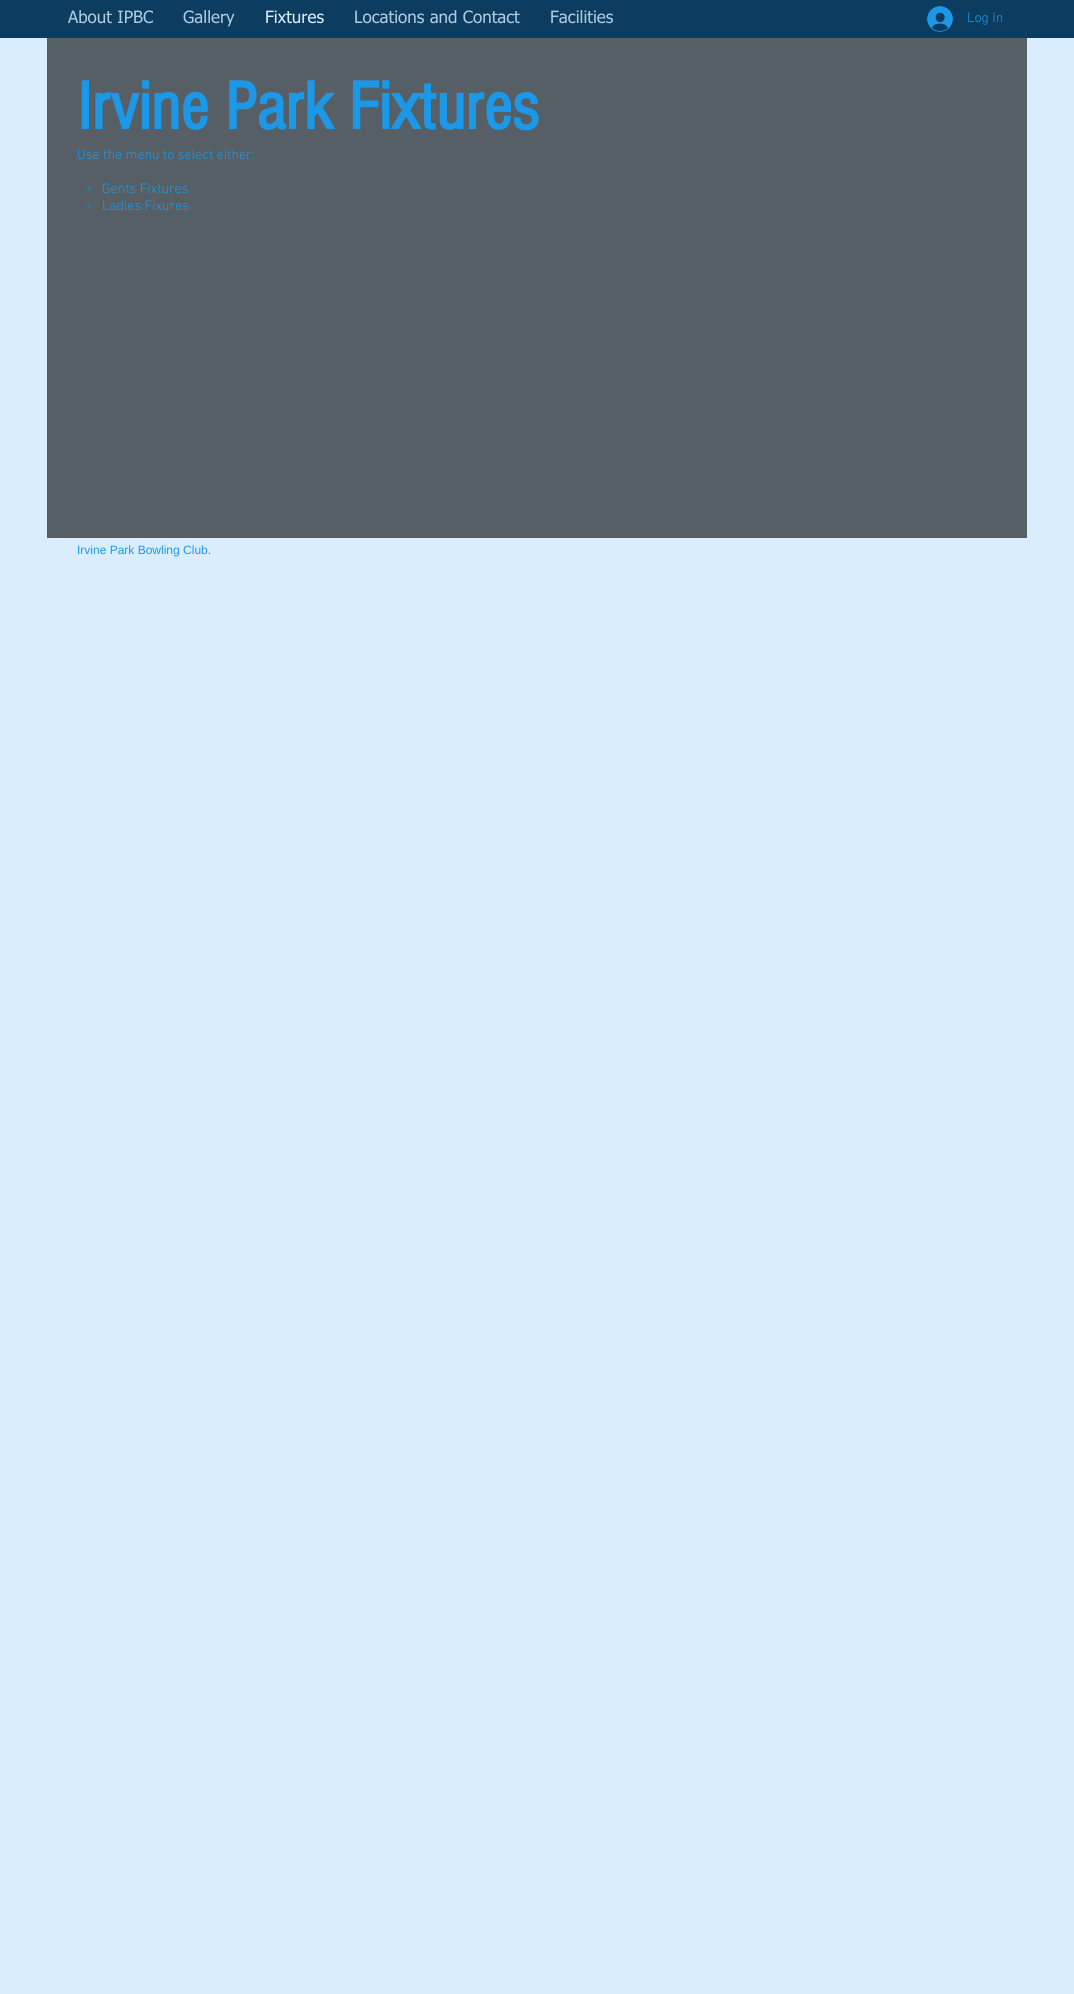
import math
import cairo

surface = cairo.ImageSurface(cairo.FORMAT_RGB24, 1074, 1994)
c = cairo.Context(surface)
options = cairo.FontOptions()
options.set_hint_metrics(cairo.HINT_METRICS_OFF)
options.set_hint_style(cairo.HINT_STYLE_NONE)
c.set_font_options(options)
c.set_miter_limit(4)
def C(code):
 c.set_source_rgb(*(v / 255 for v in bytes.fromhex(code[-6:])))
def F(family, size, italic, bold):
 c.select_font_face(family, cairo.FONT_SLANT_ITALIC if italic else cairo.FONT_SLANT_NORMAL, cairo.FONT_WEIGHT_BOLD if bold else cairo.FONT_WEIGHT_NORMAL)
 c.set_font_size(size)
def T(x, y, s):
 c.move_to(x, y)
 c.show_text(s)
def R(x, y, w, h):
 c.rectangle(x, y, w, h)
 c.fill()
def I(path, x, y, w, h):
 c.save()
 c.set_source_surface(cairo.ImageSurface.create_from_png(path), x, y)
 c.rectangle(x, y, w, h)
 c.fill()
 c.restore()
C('daedff')
c.paint()
C('0c3c60')
R(0,0,1074,38)
F('tahoma',17,0,0)
C('afcbe0')
T(68,23,'About IPBC')
T(183,23,'Gallery')
C('daedff')
T(265,23,'Fixtures')
C('afcbe0')
T(354,23,'Locations and Contact')
T(550,23,'Facilities')
I('1.png',927,6,26,26)
F('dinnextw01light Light',14,0,0)
C('1b99e8')
T(967,22,'Log In')
C('575f66')
R(47,38,980,500)
F('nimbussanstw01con',70,0,1)
C('1b99e8')
T(77,129,'Irvine Park Fixtures')
F('dinnextw01light Light',14,0,0)
T(77,159,'Use the menu to select either:')
C('39729b')
c.new_path()
c.arc(89,189,2,0,2 * math.pi)
c.fill()
C('1b99e8')
T(102,193,'Gents Fixtures')
C('39729b')
c.new_path()
c.arc(89,206,2,0,2 * math.pi)
c.fill()
C('1b99e8')
T(102,210,'Ladies Fixures')
F('Liberation Sans',12,0,0)
T(77,554,'Irvine Park Bowling Club.')
surface.write_to_png('o.png')
